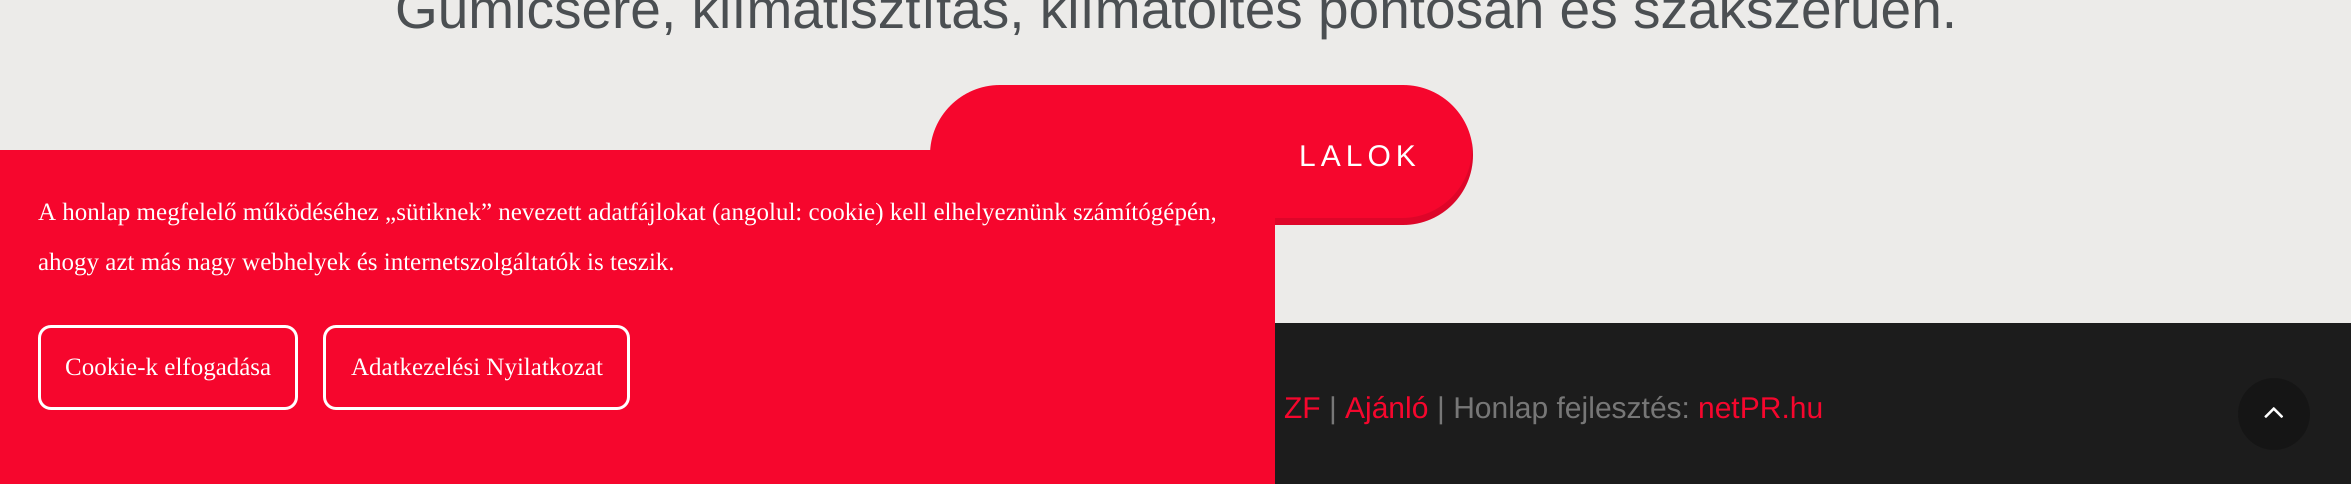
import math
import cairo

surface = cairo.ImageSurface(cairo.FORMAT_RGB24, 2351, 484)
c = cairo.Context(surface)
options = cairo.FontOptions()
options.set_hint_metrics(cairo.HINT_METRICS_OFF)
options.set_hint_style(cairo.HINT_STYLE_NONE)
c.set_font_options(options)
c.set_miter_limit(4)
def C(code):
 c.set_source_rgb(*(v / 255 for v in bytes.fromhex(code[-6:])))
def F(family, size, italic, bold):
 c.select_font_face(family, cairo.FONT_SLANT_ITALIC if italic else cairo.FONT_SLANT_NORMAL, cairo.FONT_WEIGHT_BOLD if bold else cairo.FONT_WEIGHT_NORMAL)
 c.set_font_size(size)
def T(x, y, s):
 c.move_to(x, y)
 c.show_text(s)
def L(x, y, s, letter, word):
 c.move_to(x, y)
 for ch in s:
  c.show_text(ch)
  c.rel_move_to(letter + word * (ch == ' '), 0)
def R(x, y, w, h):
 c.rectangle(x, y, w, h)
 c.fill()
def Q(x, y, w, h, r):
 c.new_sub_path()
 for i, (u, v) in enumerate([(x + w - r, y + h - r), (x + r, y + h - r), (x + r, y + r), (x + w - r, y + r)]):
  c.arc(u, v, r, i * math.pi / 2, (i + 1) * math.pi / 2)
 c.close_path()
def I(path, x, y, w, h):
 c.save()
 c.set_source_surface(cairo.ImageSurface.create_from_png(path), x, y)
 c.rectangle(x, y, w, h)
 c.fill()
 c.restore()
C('1c1c1c')
c.paint()
C('ecebe9')
R(0,0,2351,323)
F('Liberation Sans',55,0,0)
C('4b4f52')
T(395,28,'Gumicsere, klímatisztítás, klímatöltés pontosan és szakszerűen.')
C('f6062d')
Q(930,85,543,140,70)
c.fill()
c.set_source_rgba(0,0,0,0.1)
c.new_path()
c.move_to(930,151)
c.line_to(930,155)
c.curve_to(930,194,961,225,1000,225)
c.line_to(1403,225)
c.curve_to(1442,225,1473,194,1473,155)
c.curve_to(1473,150,1473,146,1472,142)
c.line_to(1472,148)
c.curve_to(1472,186,1441,218,1402,218)
c.line_to(1000,218)
c.curve_to(962,218,932,188,930,151)
c.close_path()
c.fill()
F('Liberation Sans',30,0,0)
C('ffffff')
L(1299,166,'LALOK',5,0)
C('f6062d')
T(1284,418,'ZF')
C('777777')
T(1329,418,'|')
C('f6062d')
T(1345,418,'Ajánló')
C('777777')
T(1437,418,'| Honlap fejlesztés:')
C('f6062d')
T(1698,418,'netPR.hu')
R(0,150,1275,334)
F('Liberation Serif',25,0,0)
C('ffffff')
T(38,220,'A honlap megfelelő működéséhez „sütiknek” nevezett adatfájlokat (angolul: cookie) kell elhelyeznünk számítógépén,')
T(38,270,'ahogy azt más nagy webhelyek és internetszolgáltatók is teszik.')
Q(39.5,326.5,257,82,11.5)
c.set_line_width(3)
c.stroke()
T(65,375,'Cookie-k elfogadása')
Q(324.5,326.5,304,82,11.5)
c.stroke()
T(351,375,'Adatkezelési Nyilatkozat')
C('151515')
c.new_path()
c.arc(2274,414,36,0,2 * math.pi)
c.fill()
I('1.png',2264,407,20,11)
surface.write_to_png('o.png')
